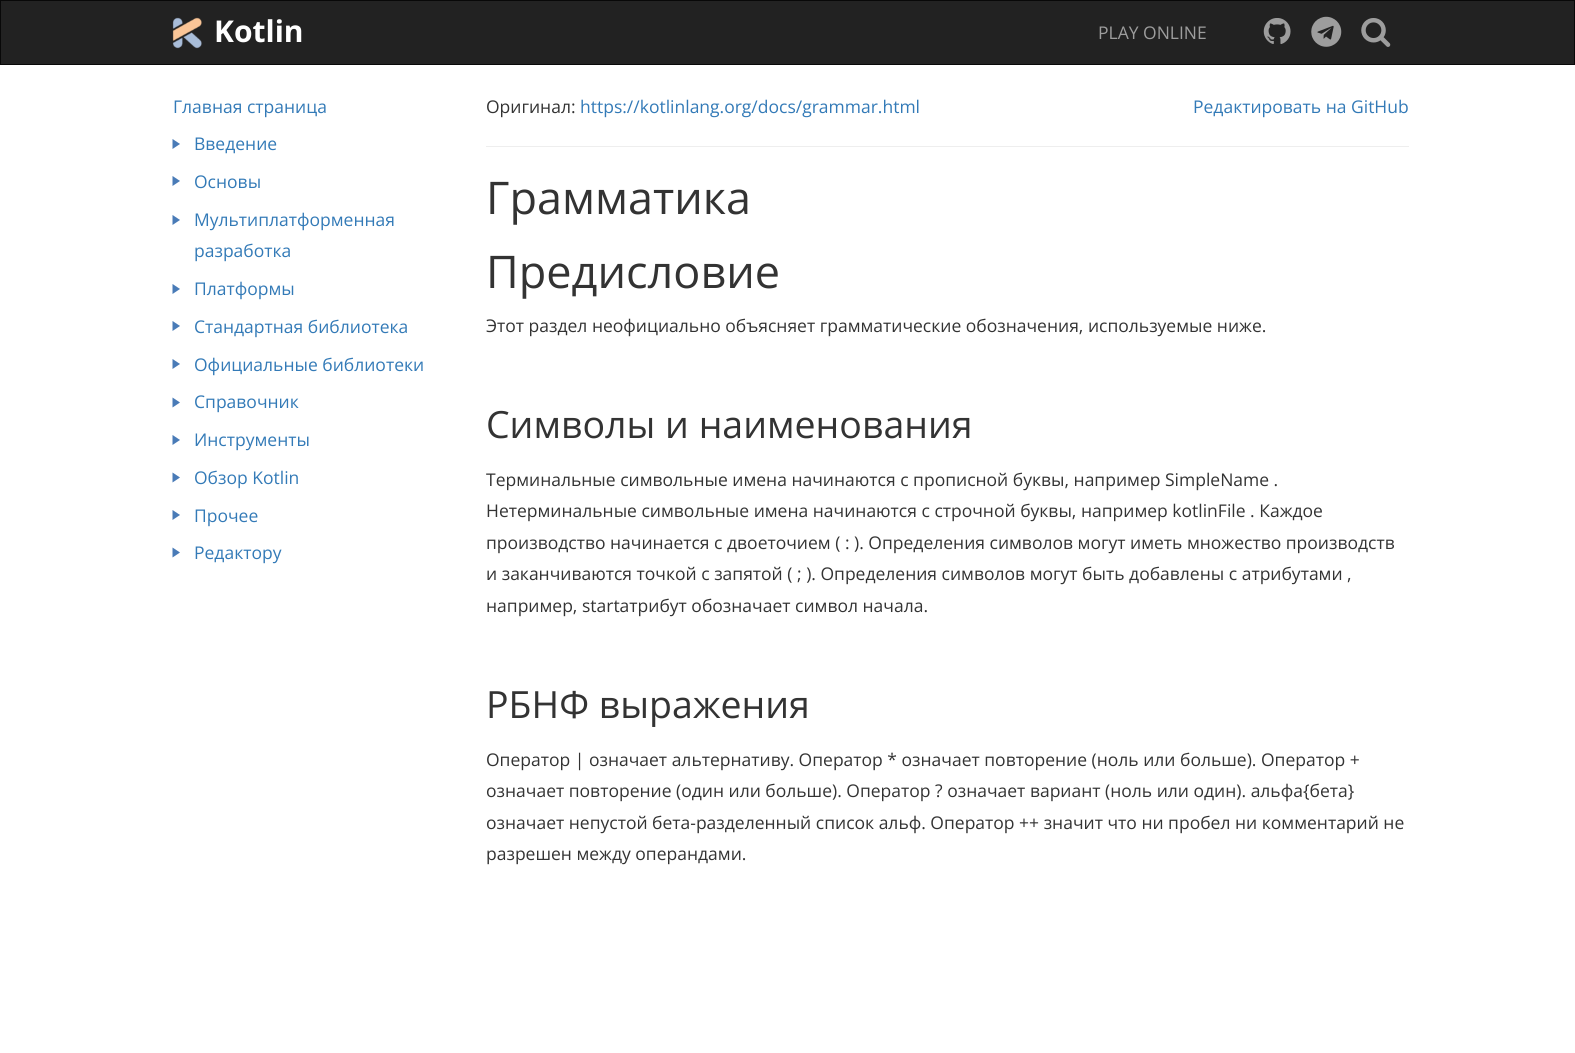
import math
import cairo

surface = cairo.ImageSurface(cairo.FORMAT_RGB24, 1575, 1053)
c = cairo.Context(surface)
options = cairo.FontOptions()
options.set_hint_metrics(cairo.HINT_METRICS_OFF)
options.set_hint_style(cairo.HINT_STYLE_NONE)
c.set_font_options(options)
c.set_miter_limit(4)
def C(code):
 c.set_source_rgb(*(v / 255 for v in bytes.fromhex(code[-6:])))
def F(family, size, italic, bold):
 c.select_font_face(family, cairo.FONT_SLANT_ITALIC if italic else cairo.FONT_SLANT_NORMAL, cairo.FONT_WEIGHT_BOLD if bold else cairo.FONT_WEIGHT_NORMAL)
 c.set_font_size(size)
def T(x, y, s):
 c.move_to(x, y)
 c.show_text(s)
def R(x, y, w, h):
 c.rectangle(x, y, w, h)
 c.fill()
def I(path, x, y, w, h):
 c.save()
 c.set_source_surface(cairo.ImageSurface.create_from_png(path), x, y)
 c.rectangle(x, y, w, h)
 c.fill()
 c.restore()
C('ffffff')
c.paint()
C('222222')
c.rectangle(.5,.5,1574,64)
c.fill_preserve()
C('080808')
c.set_line_width(1)
c.stroke()
I('1.png',172,17,30,32)
F('Open Sans',30,0,1)
C('ffffff')
T(214,42,'Kotlin')
F('Open Sans',17.5,0,0)
C('9d9d9d')
T(1098,39,'PLAY ONLINE')
I('2.png',1263,18,28,26)
I('3.png',1311,16,31,31)
I('4.png',1361,18,30,29)
C('337ab7')
T(173,113,'Главная страница')
C('497bb7')
c.new_path()
c.move_to(172.5,149)
c.line_to(172.5,139)
c.line_to(180,144)
c.close_path()
c.fill()
C('337ab7')
T(194,150,'Введение')
C('497bb7')
c.new_path()
c.move_to(172.5,186)
c.line_to(172.5,176)
c.line_to(180,181)
c.close_path()
c.fill()
C('337ab7')
T(194,188,'Основы')
C('497bb7')
c.new_path()
c.move_to(172.5,225)
c.line_to(172.5,215)
c.line_to(180,220)
c.close_path()
c.fill()
C('337ab7')
T(194,226,'Мультиплатформенная')
T(194,257,'разработка')
C('497bb7')
c.new_path()
c.move_to(172.5,294)
c.line_to(172.5,284)
c.line_to(180,289)
c.close_path()
c.fill()
C('337ab7')
T(194,295,'Платформы')
C('497bb7')
c.new_path()
c.move_to(172.5,331)
c.line_to(172.5,321)
c.line_to(180,326)
c.close_path()
c.fill()
C('337ab7')
T(194,333,'Стандартная библиотека')
C('497bb7')
c.new_path()
c.move_to(172.5,369)
c.line_to(172.5,359)
c.line_to(180,364)
c.close_path()
c.fill()
C('337ab7')
T(194,371,'Официальные библиотеки')
C('497bb7')
c.new_path()
c.move_to(172.5,407.5)
c.line_to(172.5,397.5)
c.line_to(180,402.5)
c.close_path()
c.fill()
C('337ab7')
T(194,408,'Справочник')
C('497bb7')
c.new_path()
c.move_to(172.5,445)
c.line_to(172.5,435)
c.line_to(180,440)
c.close_path()
c.fill()
C('337ab7')
T(194,446,'Инструменты')
C('497bb7')
c.new_path()
c.move_to(172.5,482.5)
c.line_to(172.5,472.5)
c.line_to(180,477.5)
c.close_path()
c.fill()
C('337ab7')
T(194,484,'Обзор Kotlin')
C('497bb7')
c.new_path()
c.move_to(172.5,520)
c.line_to(172.5,510)
c.line_to(180,515)
c.close_path()
c.fill()
C('337ab7')
T(194,522,'Прочее')
C('497bb7')
c.new_path()
c.move_to(172.5,557.5)
c.line_to(172.5,547.5)
c.line_to(180,552.5)
c.close_path()
c.fill()
C('337ab7')
T(194,559,'Редактору')
C('333333')
T(486,113,'Оригинал:')
C('337ab7')
T(580,113,'https://kotlinlang.org/docs/grammar.html')
T(1193,113,'Редактировать на GitHub')
C('eeeeee')
R(486,146,923,1)
F('Open Sans',45,0,0)
C('333333')
T(486,214,'Грамматика')
T(486,288,'Предисловие')
F('Open Sans',17.5,0,0)
T(486,332,'Этот раздел неофициально объясняет грамматические обозначения, используемые ниже.')
F('Open Sans',37.5,0,0)
T(486,438,'Символы и наименования')
F('Open Sans',17.5,0,0)
T(486,486,'Терминальные символьные имена начинаются с прописной буквы, например SimpleName .')
T(486,517,'Нетерминальные символьные имена начинаются с строчной буквы, например kotlinFile . Каждое')
T(486,549,'производство начинается с двоеточием ( : ). Определения символов могут иметь множество производств')
T(486,580,'и заканчиваются точкой с запятой ( ; ). Определения символов могут быть добавлены с атрибутами ,')
T(486,612,'например, startатрибут обозначает символ начала.')
F('Open Sans',37.5,0,0)
T(486,718,'РБНФ выражения')
F('Open Sans',17.5,0,0)
T(486,766,'Оператор | означает альтернативу. Оператор * означает повторение (ноль или больше). Оператор +')
T(486,797,'означает повторение (один или больше). Оператор ? означает вариант (ноль или один). альфа{бета}')
T(486,829,'означает непустой бета-разделенный список альф. Оператор ++ значит что ни пробел ни комментарий не')
T(486,860,'разрешен между операндами.')
surface.write_to_png('o.png')
